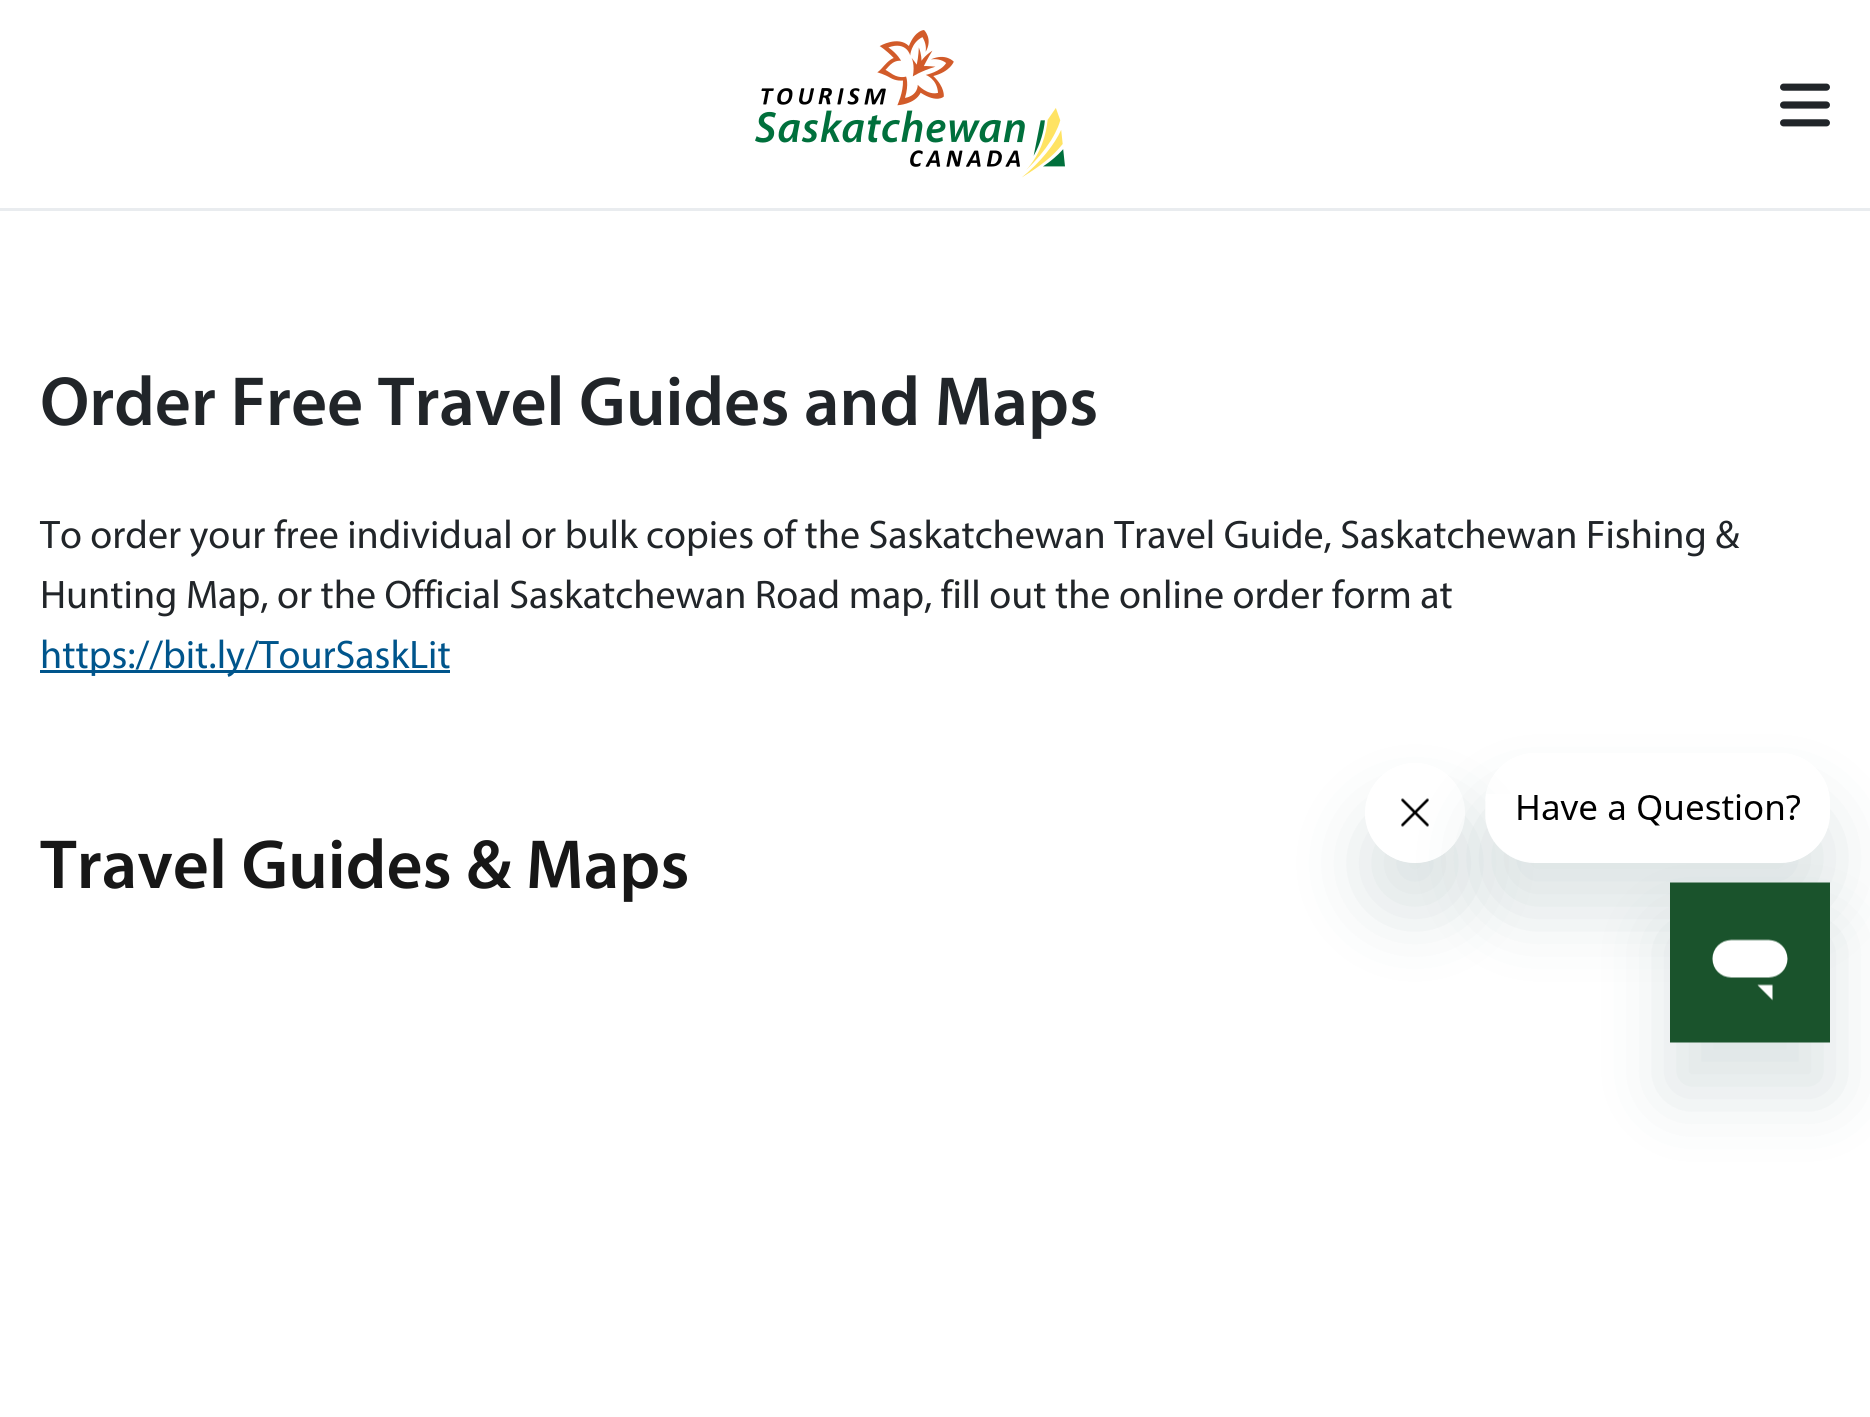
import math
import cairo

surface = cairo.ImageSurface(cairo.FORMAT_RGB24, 1870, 1417)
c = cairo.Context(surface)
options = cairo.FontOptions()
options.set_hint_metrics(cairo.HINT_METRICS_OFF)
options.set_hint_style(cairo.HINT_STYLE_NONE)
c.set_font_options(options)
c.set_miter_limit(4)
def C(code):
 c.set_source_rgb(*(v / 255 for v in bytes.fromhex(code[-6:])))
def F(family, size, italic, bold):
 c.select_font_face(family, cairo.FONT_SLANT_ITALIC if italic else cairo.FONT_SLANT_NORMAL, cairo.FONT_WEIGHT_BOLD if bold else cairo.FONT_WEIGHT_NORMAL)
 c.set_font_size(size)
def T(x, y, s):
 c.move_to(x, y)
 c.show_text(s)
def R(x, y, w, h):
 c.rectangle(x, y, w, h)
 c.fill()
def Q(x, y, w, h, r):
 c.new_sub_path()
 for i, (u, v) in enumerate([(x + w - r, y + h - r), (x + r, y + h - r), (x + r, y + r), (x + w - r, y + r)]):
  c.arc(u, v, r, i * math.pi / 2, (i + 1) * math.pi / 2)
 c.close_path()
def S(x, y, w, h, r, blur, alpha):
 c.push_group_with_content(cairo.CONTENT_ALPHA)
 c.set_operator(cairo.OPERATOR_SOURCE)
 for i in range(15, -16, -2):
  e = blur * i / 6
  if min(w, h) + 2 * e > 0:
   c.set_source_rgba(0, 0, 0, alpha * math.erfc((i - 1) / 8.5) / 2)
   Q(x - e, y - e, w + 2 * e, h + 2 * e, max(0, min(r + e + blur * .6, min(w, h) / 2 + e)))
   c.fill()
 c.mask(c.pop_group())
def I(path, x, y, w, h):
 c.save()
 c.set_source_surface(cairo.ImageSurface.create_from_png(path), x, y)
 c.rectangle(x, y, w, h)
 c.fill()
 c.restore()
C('ffffff')
c.paint()
C('e9ecef')
R(0,208,1870,3)
I('1.png',755,30,310,148)
I('2.png',1780,83,50,44)
F('Myriad SemiBold',70,0,0)
C('212529')
T(40,425,'Order Free Travel Guides and Maps')
F('Myriad',40,0,0)
T(40,548,'To order your free individual or bulk copies of the Saskatchewan Travel Guide, Saskatchewan Fishing &')
T(40,608,'Hunting Map, or the Official Saskatchewan Road map, fill out the online order form at')
C('00558c')
R(40,670,410,3)
T(40,668,'https://bit.ly/TourSaskLit')
F('Myriad SemiBold',70,0,0)
C('171717')
T(40,888,'Travel Guides & Maps')
c.save()
c.set_fill_rule(cairo.FILL_RULE_EVEN_ODD)
c.new_path()
c.move_to(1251,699)
c.line_to(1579,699)
c.line_to(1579,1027)
c.line_to(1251,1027)
c.close_path()
c.move_to(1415,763)
c.curve_to(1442.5,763,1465,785.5,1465,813)
c.curve_to(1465,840.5,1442.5,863,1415,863)
c.curve_to(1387.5,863,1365,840.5,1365,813)
c.curve_to(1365,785.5,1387.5,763,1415,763)
c.close_path()
c.clip()
C('17494d')
S(1365,813,100,100,50,37.5,.15)
c.restore()
I('4.png',1395,798,40,65)
c.save()
c.set_fill_rule(cairo.FILL_RULE_EVEN_ODD)
c.new_path()
c.move_to(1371,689)
c.line_to(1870,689)
c.line_to(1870,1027)
c.line_to(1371,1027)
c.close_path()
c.move_to(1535,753)
c.line_to(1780,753)
c.curve_to(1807.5,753,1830,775.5,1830,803)
c.line_to(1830,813)
c.curve_to(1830,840.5,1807.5,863,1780,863)
c.line_to(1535,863)
c.curve_to(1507.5,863,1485,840.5,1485,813)
c.line_to(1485,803)
c.curve_to(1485,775.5,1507.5,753,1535,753)
c.close_path()
c.clip()
C('17494d')
S(1485,803,345,110,50,37.5,.15)
c.restore()
I('3.png',1486,794,314,67)
C('17494d')
S(1670,933,160,160,0,37.5,.15)
I('5.png',1670,882,160,161)
surface.write_to_png('o.png')
